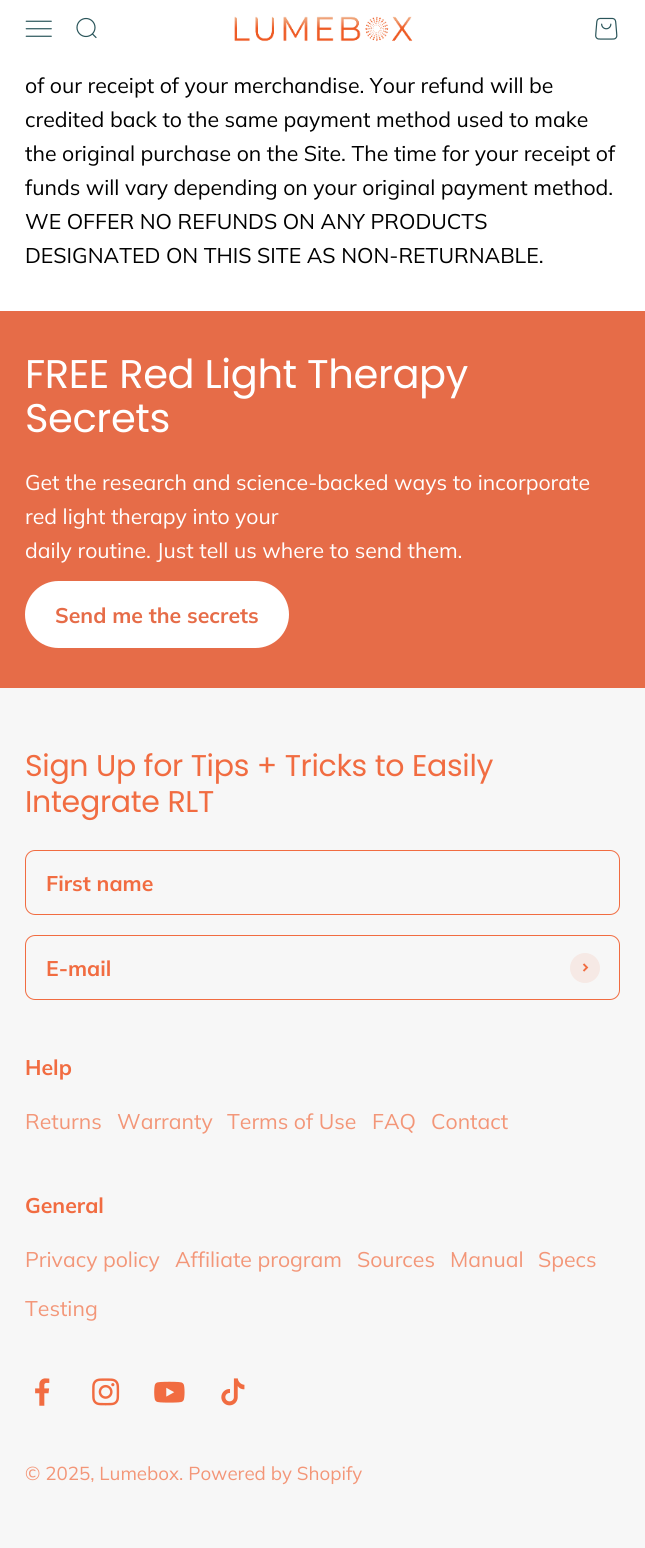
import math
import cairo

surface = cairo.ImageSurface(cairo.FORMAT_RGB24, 645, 1548)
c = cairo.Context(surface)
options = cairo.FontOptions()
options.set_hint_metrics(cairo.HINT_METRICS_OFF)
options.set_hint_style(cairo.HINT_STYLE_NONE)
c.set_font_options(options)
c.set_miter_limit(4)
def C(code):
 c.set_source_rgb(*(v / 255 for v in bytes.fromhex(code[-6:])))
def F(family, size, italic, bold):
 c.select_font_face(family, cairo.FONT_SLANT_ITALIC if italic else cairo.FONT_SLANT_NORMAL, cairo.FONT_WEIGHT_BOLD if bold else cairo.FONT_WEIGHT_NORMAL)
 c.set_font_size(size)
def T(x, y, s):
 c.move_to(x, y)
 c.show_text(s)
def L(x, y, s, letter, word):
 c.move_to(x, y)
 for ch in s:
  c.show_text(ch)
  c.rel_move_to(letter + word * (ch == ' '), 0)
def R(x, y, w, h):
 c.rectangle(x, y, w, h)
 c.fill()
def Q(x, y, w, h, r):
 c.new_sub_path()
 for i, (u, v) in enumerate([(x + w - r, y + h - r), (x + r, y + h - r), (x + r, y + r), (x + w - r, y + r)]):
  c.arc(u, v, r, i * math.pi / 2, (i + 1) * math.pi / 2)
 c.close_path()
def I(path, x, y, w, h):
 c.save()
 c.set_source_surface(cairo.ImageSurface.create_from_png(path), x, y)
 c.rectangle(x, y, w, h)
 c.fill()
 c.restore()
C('ffffff')
c.paint()
I('1.png',25,20,27,17)
c.arc(86,27.5,9,0,2 * math.pi)
C('2a555a')
c.set_line_width(1.2)
c.stroke()
c.new_path()
c.move_to(92.5,34)
c.line_to(96,37.5)
c.set_line_cap(cairo.LINE_CAP_ROUND)
c.set_line_join(cairo.LINE_JOIN_ROUND)
c.stroke()
I('2.png',234,16,179,26)
I('3.png',595,17,23,23)
F('Muli',21.25,0,0)
C('000000')
T(25,93,'of our receipt of your merchandise. Your refund will be')
T(25,127,'credited back to the same payment method used to make')
T(25,161,'the original purchase on the Site. The time for your receipt of')
T(25,195,'funds will vary depending on your original payment method.')
T(25,229,'WE OFFER NO REFUNDS ON ANY PRODUCTS')
T(25,263,'DESIGNATED ON THIS SITE AS NON-RETURNABLE.')
C('e66c48')
R(0,311,645,377)
F('Poppins',40,0,0)
C('ffffff')
L(25,388,'FREE Red Light Therapy',-.4,0)
L(25,432,'Secrets',-.4,0)
F('Muli',21.25,0,0)
T(25,490,'Get the research and science-backed ways to incorporate')
T(25,524,'red light therapy into your')
T(25,558,'daily routine. Just tell us where to send them.')
Q(25,581,264,67,33.5)
c.fill()
F('Muli',21.25,0,1)
C('e66c48')
T(55,623,'Send me the secrets')
C('f7f7f7')
R(0,688,645,860)
F('Poppins',30,0,0)
C('f16c41')
L(25,776,'Sign Up for Tips + Tricks to Easily',-.3,0)
L(25,812,'Integrate RLT',-.3,0)
Q(25.5,850.5,594,64,9.5)
c.set_line_width(1)
c.set_line_cap(cairo.LINE_CAP_BUTT)
c.set_line_join(cairo.LINE_JOIN_MITER)
c.stroke()
F('Muli',21.25,0,1)
T(46,891,'First name')
Q(25.5,935.5,594,64,9.5)
c.stroke()
T(46,976,'E-mail')
C('f6e9e5')
c.new_path()
c.arc(585,968,15,0,2 * math.pi)
c.fill()
c.new_path()
c.move_to(583.5,971)
c.line_to(587,967.5)
c.line_to(583.5,964)
C('f16c41')
c.set_line_width(1.9)
c.stroke()
T(25,1075,'Help')
F('Muli',21.25,0,0)
C('f39678')
T(25,1129,'Returns')
T(117,1129,'Warranty')
T(227,1129,'Terms of Use')
T(372,1129,'FAQ')
T(431,1129,'Contact')
F('Muli',21.25,0,1)
C('f16c41')
T(25,1213,'General')
F('Muli',21.25,0,0)
C('f39678')
T(25,1267,'Privacy policy')
T(175,1267,'Affiliate program')
T(357,1267,'Sources')
T(450,1267,'Manual')
T(538,1267,'Specs')
T(25,1316,'Testing')
I('4.png',35,1378,15,28)
I('5.png',92,1378,28,28)
I('6.png',154,1381,31,22)
I('7.png',221,1378,24,28)
F('Muli',18.75,0,0)
T(25,1480,'© 2025, Lumebox. Powered by Shopify')
surface.write_to_png('o.png')
